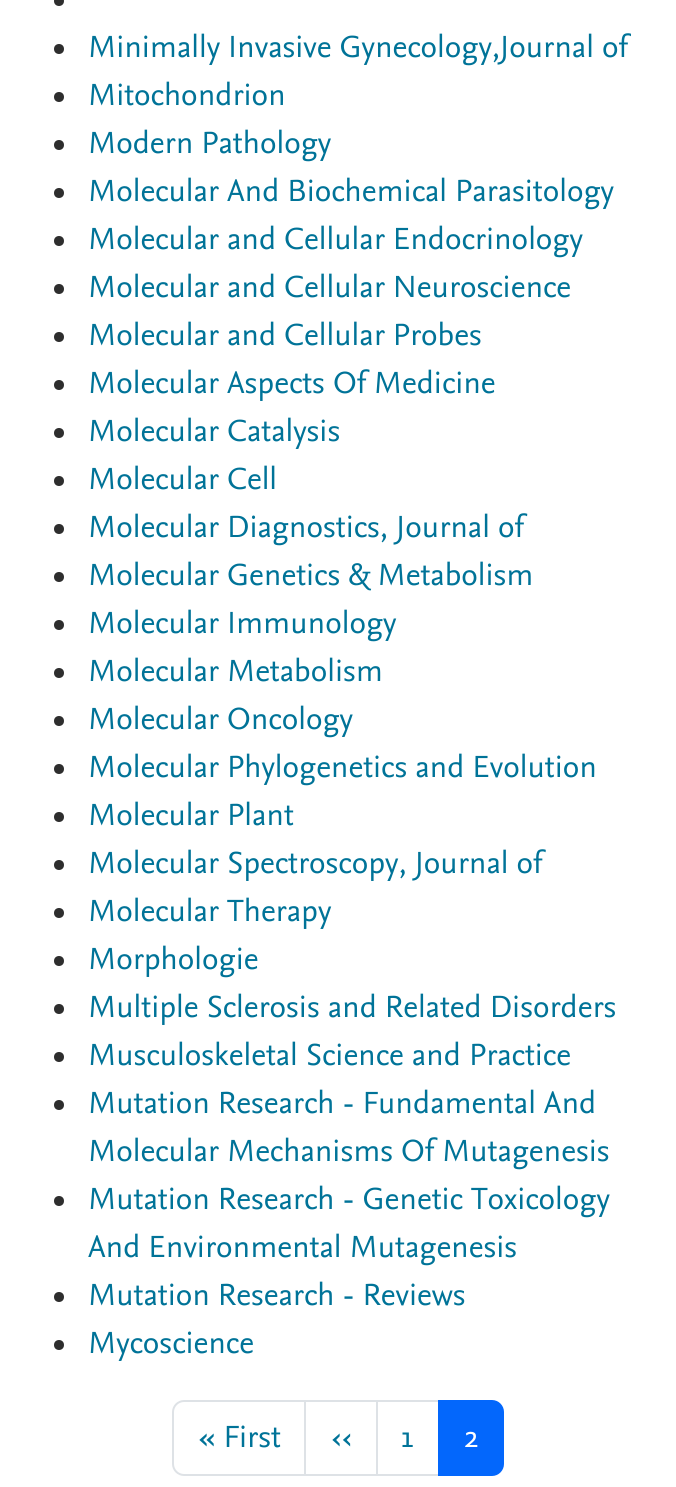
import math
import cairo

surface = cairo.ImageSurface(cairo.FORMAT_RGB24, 676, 1487)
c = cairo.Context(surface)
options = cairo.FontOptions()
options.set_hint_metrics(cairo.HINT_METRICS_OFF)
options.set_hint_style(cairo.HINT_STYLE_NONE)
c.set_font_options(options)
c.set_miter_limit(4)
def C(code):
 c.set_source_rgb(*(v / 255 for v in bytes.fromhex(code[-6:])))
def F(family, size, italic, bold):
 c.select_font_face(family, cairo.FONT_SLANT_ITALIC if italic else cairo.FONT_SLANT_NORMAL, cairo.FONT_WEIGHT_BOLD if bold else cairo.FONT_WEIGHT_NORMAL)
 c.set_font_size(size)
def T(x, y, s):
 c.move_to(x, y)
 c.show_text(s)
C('ffffff')
c.paint()
C('2e2e2e')
c.arc(59,1,5,0,2 * math.pi)
c.fill()
c.arc(59,49,5,0,2 * math.pi)
c.fill()
F('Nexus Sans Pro',32,0,0)
C('007398')
T(88,57,'Minimally Invasive Gynecology,Journal of')
C('2e2e2e')
c.new_path()
c.arc(59,97,5,0,2 * math.pi)
c.fill()
C('007398')
T(88,105,'Mitochondrion')
C('2e2e2e')
c.new_path()
c.arc(59,145,5,0,2 * math.pi)
c.fill()
C('007398')
T(88,153,'Modern Pathology')
C('2e2e2e')
c.new_path()
c.arc(59,193,5,0,2 * math.pi)
c.fill()
C('007398')
T(88,201,'Molecular And Biochemical Parasitology')
C('2e2e2e')
c.new_path()
c.arc(59,241,5,0,2 * math.pi)
c.fill()
C('007398')
T(88,249,'Molecular and Cellular Endocrinology')
C('2e2e2e')
c.new_path()
c.arc(59,289,5,0,2 * math.pi)
c.fill()
C('007398')
T(88,297,'Molecular and Cellular Neuroscience')
C('2e2e2e')
c.new_path()
c.arc(59,337,5,0,2 * math.pi)
c.fill()
C('007398')
T(88,345,'Molecular and Cellular Probes')
C('2e2e2e')
c.new_path()
c.arc(59,385,5,0,2 * math.pi)
c.fill()
C('007398')
T(88,393,'Molecular Aspects Of Medicine')
C('2e2e2e')
c.new_path()
c.arc(59,433,5,0,2 * math.pi)
c.fill()
C('007398')
T(88,441,'Molecular Catalysis')
C('2e2e2e')
c.new_path()
c.arc(59,481,5,0,2 * math.pi)
c.fill()
C('007398')
T(88,489,'Molecular Cell')
C('2e2e2e')
c.new_path()
c.arc(59,529,5,0,2 * math.pi)
c.fill()
C('007398')
T(88,537,'Molecular Diagnostics, Journal of')
C('2e2e2e')
c.new_path()
c.arc(59,577,5,0,2 * math.pi)
c.fill()
C('007398')
T(88,585,'Molecular Genetics & Metabolism')
C('2e2e2e')
c.new_path()
c.arc(59,625,5,0,2 * math.pi)
c.fill()
C('007398')
T(88,633,'Molecular Immunology')
C('2e2e2e')
c.new_path()
c.arc(59,673,5,0,2 * math.pi)
c.fill()
C('007398')
T(88,681,'Molecular Metabolism')
C('2e2e2e')
c.new_path()
c.arc(59,721,5,0,2 * math.pi)
c.fill()
C('007398')
T(88,729,'Molecular Oncology')
C('2e2e2e')
c.new_path()
c.arc(59,769,5,0,2 * math.pi)
c.fill()
C('007398')
T(88,777,'Molecular Phylogenetics and Evolution')
C('2e2e2e')
c.new_path()
c.arc(59,817,5,0,2 * math.pi)
c.fill()
C('007398')
T(88,825,'Molecular Plant')
C('2e2e2e')
c.new_path()
c.arc(59,865,5,0,2 * math.pi)
c.fill()
C('007398')
T(88,873,'Molecular Spectroscopy, Journal of')
C('2e2e2e')
c.new_path()
c.arc(59,913,5,0,2 * math.pi)
c.fill()
C('007398')
T(88,921,'Molecular Therapy')
C('2e2e2e')
c.new_path()
c.arc(59,961,5,0,2 * math.pi)
c.fill()
C('007398')
T(88,969,'Morphologie')
C('2e2e2e')
c.new_path()
c.arc(59,1009,5,0,2 * math.pi)
c.fill()
C('007398')
T(88,1017,'Multiple Sclerosis and Related Disorders')
C('2e2e2e')
c.new_path()
c.arc(59,1057,5,0,2 * math.pi)
c.fill()
C('007398')
T(88,1065,'Musculoskeletal Science and Practice')
C('2e2e2e')
c.new_path()
c.arc(59,1105,5,0,2 * math.pi)
c.fill()
C('007398')
T(88,1113,'Mutation Research - Fundamental And')
T(88,1161,'Molecular Mechanisms Of Mutagenesis')
C('2e2e2e')
c.new_path()
c.arc(59,1201,5,0,2 * math.pi)
c.fill()
C('007398')
T(88,1209,'Mutation Research - Genetic Toxicology')
T(88,1257,'And Environmental Mutagenesis')
C('2e2e2e')
c.new_path()
c.arc(59,1297,5,0,2 * math.pi)
c.fill()
C('007398')
T(88,1305,'Mutation Research - Reviews')
C('2e2e2e')
c.new_path()
c.arc(59,1345,5,0,2 * math.pi)
c.fill()
C('007398')
T(88,1353,'Mycoscience')
c.new_path()
c.move_to(184,1401)
c.line_to(305,1401)
c.line_to(305,1475)
c.line_to(184,1475)
c.curve_to(178,1475,173,1470,173,1464)
c.line_to(173,1412)
c.curve_to(173,1406,178,1401,184,1401)
c.close_path()
C('dee2e6')
c.stroke()
C('007398')
T(198,1447,'« First')
c.rectangle(305,1401,72,74)
C('dee2e6')
c.stroke()
C('007398')
T(331,1447,'‹‹')
c.rectangle(377,1401,62,74)
C('dee2e6')
c.stroke()
C('007398')
T(401,1447,'1')
C('0367fc')
c.new_path()
c.move_to(439,1401)
c.line_to(492,1401)
c.curve_to(498,1401,503,1406,503,1412)
c.line_to(503,1464)
c.curve_to(503,1470,498,1475,492,1475)
c.line_to(439,1475)
c.close_path()
c.fill_preserve()
c.stroke()
C('ffffff')
T(464,1447,'2')
surface.write_to_png('o.png')
